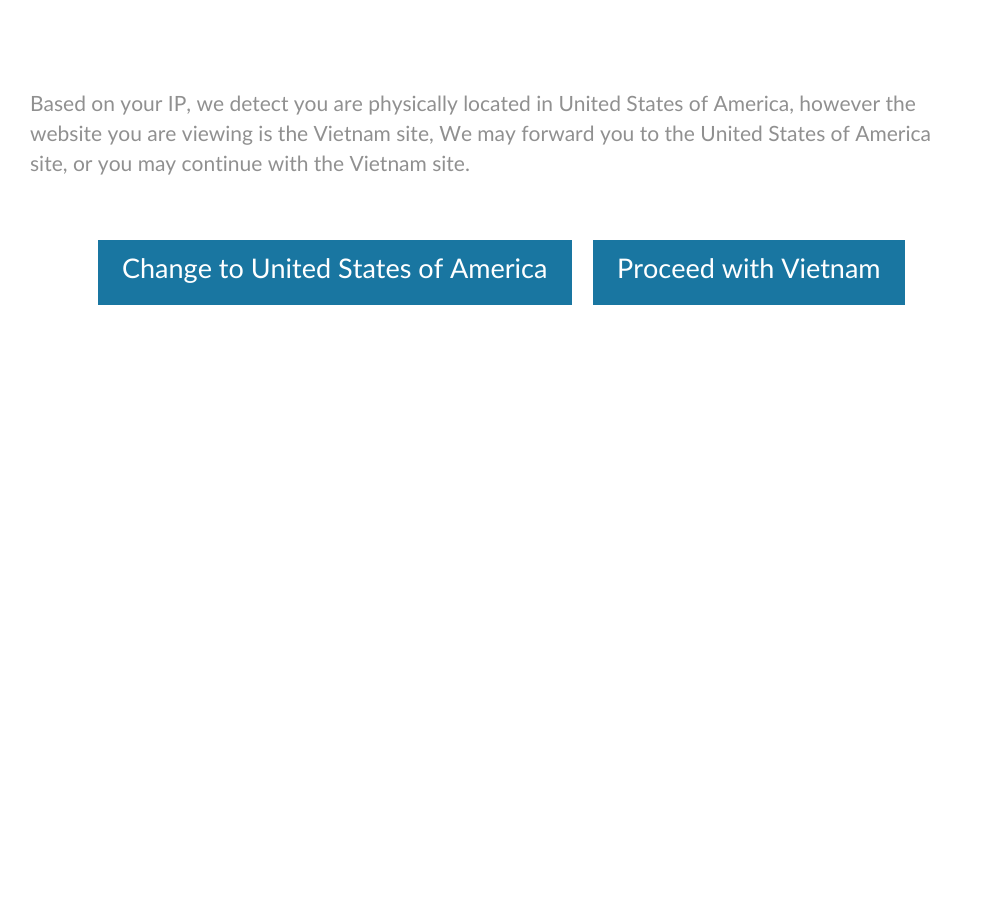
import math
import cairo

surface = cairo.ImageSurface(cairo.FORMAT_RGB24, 1001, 910)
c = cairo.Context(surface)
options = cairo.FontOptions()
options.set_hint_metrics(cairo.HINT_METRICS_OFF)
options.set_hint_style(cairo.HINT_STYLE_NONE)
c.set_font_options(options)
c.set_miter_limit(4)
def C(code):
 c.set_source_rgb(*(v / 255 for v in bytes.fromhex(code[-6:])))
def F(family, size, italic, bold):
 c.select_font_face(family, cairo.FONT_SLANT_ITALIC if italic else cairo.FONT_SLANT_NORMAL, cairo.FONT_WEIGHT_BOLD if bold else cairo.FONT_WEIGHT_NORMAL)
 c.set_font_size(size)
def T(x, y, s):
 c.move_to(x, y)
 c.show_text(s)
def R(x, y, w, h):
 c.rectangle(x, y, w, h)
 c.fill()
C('ffffff')
c.paint()
F('Lato',21,0,0)
C('909090')
T(30,111,'Based on your IP, we detect you are physically located in United States of America, however the')
T(30,141,'website you are viewing is the Vietnam site, We may forward you to the United States of America')
T(30,171,'site, or you may continue with the Vietnam site.')
C('1976a1')
R(98,240,474,65)
F('Lato',27,0,0)
C('ffffff')
T(122,278,'Change to United States of America')
C('1976a1')
R(593,240,312,65)
C('ffffff')
T(617,278,'Proceed with Vietnam')
surface.write_to_png('o.png')
